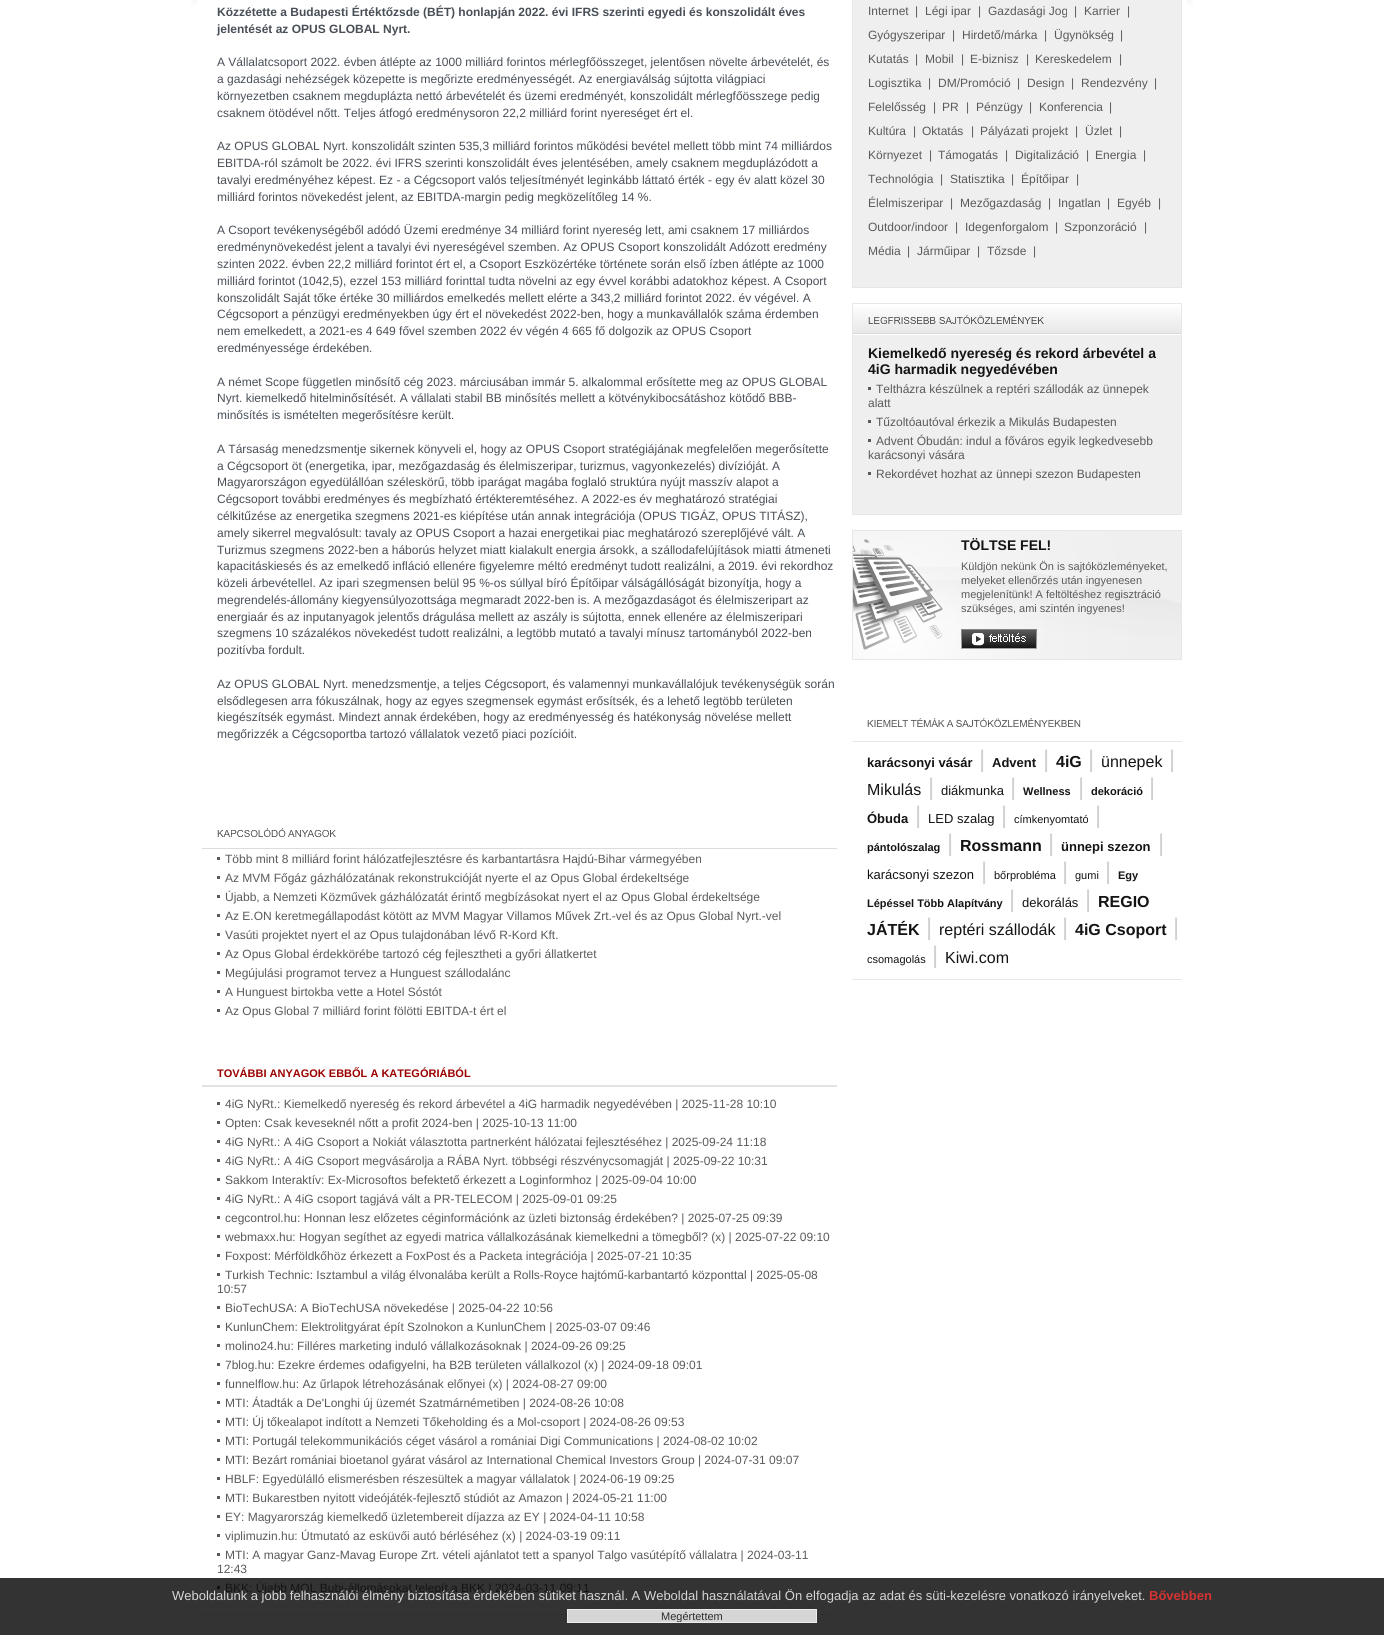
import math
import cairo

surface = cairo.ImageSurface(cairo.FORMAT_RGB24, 1384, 1635)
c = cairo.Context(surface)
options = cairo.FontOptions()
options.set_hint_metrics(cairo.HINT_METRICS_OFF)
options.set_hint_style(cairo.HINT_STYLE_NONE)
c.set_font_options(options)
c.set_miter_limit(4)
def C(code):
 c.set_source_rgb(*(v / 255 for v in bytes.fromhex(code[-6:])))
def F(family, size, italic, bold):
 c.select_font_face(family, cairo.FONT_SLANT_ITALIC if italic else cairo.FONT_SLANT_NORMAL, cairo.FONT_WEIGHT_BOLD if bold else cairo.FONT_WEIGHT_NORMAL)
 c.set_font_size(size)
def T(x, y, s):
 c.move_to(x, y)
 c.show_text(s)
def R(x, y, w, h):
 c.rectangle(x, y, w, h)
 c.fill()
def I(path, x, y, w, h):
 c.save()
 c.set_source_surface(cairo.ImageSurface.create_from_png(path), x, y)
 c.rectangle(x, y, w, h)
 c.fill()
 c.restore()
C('ffffff')
c.paint()
C('333333')
R(0,1578,1384,57)
I('1.png',191,0,1002,5)
F('Liberation Sans',12,0,1)
C('494f57')
T(217,16,'Közzétette a Budapesti Értéktőzsde (BÉT) honlapján 2022. évi IFRS szerinti egyedi és konszolidált éves')
T(217,33,'jelentését az OPUS GLOBAL Nyrt.')
F('Liberation Sans',12,0,0)
T(217,66,'A Vállalatcsoport 2022. évben átlépte az 1000 milliárd forintos mérlegfőösszeget, jelentősen növelte árbevételét, és')
T(217,83,'a gazdasági nehézségek közepette is megőrizte eredményességét. Az energiaválság sújtotta világpiaci')
T(217,100,'környezetben csaknem megduplázta nettó árbevételét és üzemi eredményét, konszolidált mérlegfőösszege pedig')
T(217,117,'csaknem ötödével nőtt. Teljes átfogó eredménysoron 22,2 milliárd forint nyereséget ért el.')
T(217,150,'Az OPUS GLOBAL Nyrt. konszolidált szinten 535,3 milliárd forintos működési bevétel mellett több mint 74 milliárdos')
T(217,167,'EBITDA-ról számolt be 2022. évi IFRS szerinti konszolidált éves jelentésében, amely csaknem megduplázódott a')
T(217,184,'tavalyi eredményéhez képest. Ez - a Cégcsoport valós teljesítményét leginkább láttató érték - egy év alatt közel 30')
T(217,201,'milliárd forintos növekedést jelent, az EBITDA-margin pedig megközelítőleg 14 %.')
T(217,234,'A Csoport tevékenységéből adódó Üzemi eredménye 34 milliárd forint nyereség lett, ami csaknem 17 milliárdos')
T(217,251,'eredménynövekedést jelent a tavalyi évi nyereségével szemben. Az OPUS Csoport konszolidált Adózott eredmény')
T(217,268,'szinten 2022. évben 22,2 milliárd forintot ért el, a Csoport Eszközértéke története során első ízben átlépte az 1000')
T(217,285,'milliárd forintot (1042,5), ezzel 153 milliárd forinttal tudta növelni az egy évvel korábbi adatokhoz képest. A Csoport')
T(217,302,'konszolidált Saját tőke értéke 30 milliárdos emelkedés mellett elérte a 343,2 milliárd forintot 2022. év végével. A')
T(217,318,'Cégcsoport a pénzügyi eredményekben úgy ért el növekedést 2022-ben, hogy a munkavállalók száma érdemben')
T(217,335,'nem emelkedett, a 2021-es 4 649 fővel szemben 2022 év végén 4 665 fő dolgozik az OPUS Csoport')
T(217,352,'eredményessége érdekében.')
T(217,386,'A német Scope független minősítő cég 2023. márciusában immár 5. alkalommal erősítette meg az OPUS GLOBAL')
T(217,402,'Nyrt. kiemelkedő hitelminősítését. A vállalati stabil BB minősítés mellett a kötvénykibocsátáshoz kötődő BBB-')
T(217,419,'minősítés is ismételten megerősítésre került.')
T(217,453,'A Társaság menedzsmentje sikernek könyveli el, hogy az OPUS Csoport stratégiájának megfelelően megerősítette')
T(217,470,'a Cégcsoport öt (energetika, ipar, mezőgazdaság és élelmiszeripar, turizmus, vagyonkezelés) divízióját. A')
T(217,486,'Magyarországon egyedülállóan széleskörű, több iparágat magába foglaló struktúra nyújt masszív alapot a')
T(217,503,'Cégcsoport további eredményes és megbízható értékteremtéséhez. A 2022-es év meghatározó stratégiai')
T(217,520,'célkitűzése az energetika szegmens 2021-es kiépítése után annak integrációja (OPUS TIGÁZ, OPUS TITÁSZ),')
T(217,537,'amely sikerrel megvalósult: tavaly az OPUS Csoport a hazai energetikai piac meghatározó szereplőjévé vált. A')
T(217,554,'Turizmus szegmens 2022-ben a háborús helyzet miatt kialakult energia ársokk, a szállodafelújítások miatti átmeneti')
T(217,570,'kapacitáskiesés és az emelkedő infláció ellenére figyelemre méltó eredményt tudott realizálni, a 2019. évi rekordhoz')
T(217,587,'közeli árbevétellel. Az ipari szegmensen belül 95 %-os súllyal bíró Építőipar válságállóságát bizonyítja, hogy a')
T(217,604,'megrendelés-állomány kiegyensúlyozottsága megmaradt 2022-ben is. A mezőgazdaságot és élelmiszeripart az')
T(217,621,'energiaár és az inputanyagok jelentős drágulása mellett az aszály is sújtotta, ennek ellenére az élelmiszeripari')
T(217,637,'szegmens 10 százalékos növekedést tudott realizálni, a legtöbb mutató a tavalyi mínusz tartományból 2022-ben')
T(217,654,'pozitívba fordult.')
T(217,688,'Az OPUS GLOBAL Nyrt. menedzsmentje, a teljes Cégcsoport, és valamennyi munkavállalójuk tevékenységük során')
T(217,705,'elsődlegesen arra fókuszálnak, hogy az egyes szegmensek egymást erősítsék, és a lehető legtöbb területen')
T(217,721,'kiegészítsék egymást. Mindezt annak érdekében, hogy az eredményesség és hatékonyság növelése mellett')
T(217,738,'megőrizzék a Cégcsoportba tartozó vállalatok vezető piaci pozícióit.')
I('2.png',217,828,119,9)
C('dcdcdc')
R(202,848,635,1)
C('5a5a5a')
T(225,863,'Több mint 8 milliárd forint hálózatfejlesztésre és karbantartásra Hajdú-Bihar vármegyében')
R(217,857,3,3)
T(225,882,'Az MVM Főgáz gázhálózatának rekonstrukcióját nyerte el az Opus Global érdekeltsége')
R(217,876,3,3)
T(225,901,'Újabb, a Nemzeti Közművek gázhálózatát érintő megbízásokat nyert el az Opus Global érdekeltsége')
R(217,895,3,3)
T(225,920,'Az E.ON keretmegállapodást kötött az MVM Magyar Villamos Művek Zrt.-vel és az Opus Global Nyrt.-vel')
R(217,914,3,3)
T(225,939,'Vasúti projektet nyert el az Opus tulajdonában lévő R-Kord Kft.')
R(217,933,3,3)
T(225,958,'Az Opus Global érdekkörébe tartozó cég fejlesztheti a győri állatkertet')
R(217,952,3,3)
T(225,977,'Megújulási programot tervez a Hunguest szállodalánc')
R(217,971,3,3)
T(225,996,'A Hunguest birtokba vette a Hotel Sóstót')
R(217,990,3,3)
T(225,1015,'Az Opus Global 7 milliárd forint fölötti EBITDA-t ért el')
R(217,1009,3,3)
C('e3e3e3')
R(202,1085,635,2)
F('Liberation Sans',11,0,1)
C('9a0000')
T(217,1077,'TOVÁBBI ANYAGOK EBBŐL A KATEGÓRIÁBÓL')
C('5a5a5a')
R(217,1102,3,3)
F('Liberation Sans',12,0,0)
T(225,1108,'4iG NyRt.: Kiemelkedő nyereség és rekord árbevétel a 4iG harmadik negyedévében | 2025-11-28 10:10')
R(217,1121,3,3)
T(225,1127,'Opten: Csak keveseknél nőtt a profit 2024-ben | 2025-10-13 11:00')
R(217,1140,3,3)
T(225,1146,'4iG NyRt.: A 4iG Csoport a Nokiát választotta partnerként hálózatai fejlesztéséhez | 2025-09-24 11:18')
R(217,1159,3,3)
T(225,1165,'4iG NyRt.: A 4iG Csoport megvásárolja a RÁBA Nyrt. többségi részvénycsomagját | 2025-09-22 10:31')
R(217,1178,3,3)
T(225,1184,'Sakkom Interaktív: Ex-Microsoftos befektető érkezett a Loginformhoz | 2025-09-04 10:00')
R(217,1197,3,3)
T(225,1203,'4iG NyRt.: A 4iG csoport tagjává vált a PR-TELECOM | 2025-09-01 09:25')
R(217,1216,3,3)
T(225,1222,'cegcontrol.hu: Honnan lesz előzetes céginformációnk az üzleti biztonság érdekében? | 2025-07-25 09:39')
R(217,1235,3,3)
T(225,1241,'webmaxx.hu: Hogyan segíthet az egyedi matrica vállalkozásának kiemelkedni a tömegből? (x) | 2025-07-22 09:10')
R(217,1254,3,3)
T(225,1260,'Foxpost: Mérföldkőhöz érkezett a FoxPost és a Packeta integrációja | 2025-07-21 10:35')
R(217,1273,3,3)
T(225,1279,'Turkish Technic: Isztambul a világ élvonalába került a Rolls-Royce hajtómű-karbantartó központtal | 2025-05-08')
T(217,1293,'10:57')
R(217,1306,3,3)
T(225,1312,'BioTechUSA: A BioTechUSA növekedése | 2025-04-22 10:56')
R(217,1325,3,3)
T(225,1331,'KunlunChem: Elektrolitgyárat épít Szolnokon a KunlunChem | 2025-03-07 09:46')
R(217,1344,3,3)
T(225,1350,'molino24.hu: Filléres marketing induló vállalkozásoknak | 2024-09-26 09:25')
R(217,1363,3,3)
T(225,1369,'7blog.hu: Ezekre érdemes odafigyelni, ha B2B területen vállalkozol (x) | 2024-09-18 09:01')
R(217,1382,3,3)
T(225,1388,'funnelflow.hu: Az űrlapok létrehozásának előnyei (x) | 2024-08-27 09:00')
R(217,1401,3,3)
T(225,1407,'MTI: Átadták a De\'Longhi új üzemét Szatmárnémetiben | 2024-08-26 10:08')
R(217,1420,3,3)
T(225,1426,'MTI: Új tőkealapot indított a Nemzeti Tőkeholding és a Mol-csoport | 2024-08-26 09:53')
R(217,1439,3,3)
T(225,1445,'MTI: Portugál telekommunikációs céget vásárol a romániai Digi Communications | 2024-08-02 10:02')
R(217,1458,3,3)
T(225,1464,'MTI: Bezárt romániai bioetanol gyárat vásárol az International Chemical Investors Group | 2024-07-31 09:07')
R(217,1477,3,3)
T(225,1483,'HBLF: Egyedülálló elismerésben részesültek a magyar vállalatok | 2024-06-19 09:25')
R(217,1496,3,3)
T(225,1502,'MTI: Bukarestben nyitott videójáték-fejlesztő stúdiót az Amazon | 2024-05-21 11:00')
R(217,1515,3,3)
T(225,1521,'EY: Magyarország kiemelkedő üzletembereit díjazza az EY | 2024-04-11 10:58')
R(217,1534,3,3)
T(225,1540,'viplimuzin.hu: Útmutató az esküvői autó bérléséhez (x) | 2024-03-19 09:11')
R(217,1553,3,3)
T(225,1559,'MTI: A magyar Ganz-Mavag Europe Zrt. vételi ajánlatot tett a spanyol Talgo vasútépítő vállalatra | 2024-03-11')
T(217,1573,'12:43')
C('121212')
R(217,1586,3,3)
C('141414')
T(225,1592,'BKK: Újabb MOL Bubi-állomásokat telepít a BKK | 2024-03-11 09:11')
I('3.png',202,1614,633,1)
C('efefef')
c.rectangle(852.5,-.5,329,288)
c.fill_preserve()
C('e7e7e7')
c.set_line_width(1)
c.stroke()
C('5a5a5a')
T(868,15,'Internet')
T(915,15,'|')
T(925,15,'Légi ipar')
T(978,15,'|')
T(988,15,'Gazdasági Jog')
T(1074,15,'|')
T(1084,15,'Karrier')
T(1127,15,'|')
T(868,39,'Gyógyszeripar')
T(952,39,'|')
T(962,39,'Hirdető/márka')
T(1044,39,'|')
T(1054,39,'Ügynökség')
T(1120,39,'|')
T(868,63,'Kutatás')
T(915,63,'|')
T(925,63,'Mobil')
T(961,63,'|')
T(970,63,'E-biznisz')
T(1026,63,'|')
T(1035,63,'Kereskedelem')
T(1119,63,'|')
T(868,87,'Logisztika')
T(928,87,'|')
T(938,87,'DM/Promóció')
T(1017,87,'|')
T(1027,87,'Design')
T(1071,87,'|')
T(1081,87,'Rendezvény')
T(1154,87,'|')
T(868,111,'Felelősség')
T(933,111,'|')
T(942,111,'PR')
T(966,111,'|')
T(976,111,'Pénzügy')
T(1029,111,'|')
T(1039,111,'Konferencia')
T(1109,111,'|')
T(868,135,'Kultúra')
T(913,135,'|')
T(922,135,'Oktatás')
T(971,135,'|')
T(980,135,'Pályázati projekt')
T(1075,135,'|')
T(1085,135,'Üzlet')
T(1119,135,'|')
T(868,159,'Környezet')
T(929,159,'|')
T(938,159,'Támogatás')
T(1005,159,'|')
T(1015,159,'Digitalizáció')
T(1086,159,'|')
T(1095,159,'Energia')
T(1143,159,'|')
T(868,183,'Technológia')
T(940,183,'|')
T(950,183,'Statisztika')
T(1011,183,'|')
T(1021,183,'Építőipar')
T(1076,183,'|')
T(868,207,'Élelmiszeripar')
T(950,207,'|')
T(960,207,'Mezőgazdaság')
T(1048,207,'|')
T(1058,207,'Ingatlan')
T(1107,207,'|')
T(1117,207,'Egyéb')
T(1158,207,'|')
T(868,231,'Outdoor/indoor')
T(955,231,'|')
T(965,231,'Idegenforgalom')
T(1055,231,'|')
T(1064,231,'Szponzoráció')
T(1144,231,'|')
T(868,255,'Média')
T(907,255,'|')
T(917,255,'Járműipar')
T(977,255,'|')
T(987,255,'Tőzsde')
T(1033,255,'|')
C('efefef')
R(853,335,328,179)
c.rectangle(852.5,303.5,329,211)
C('e7e7e7')
c.stroke()
I('4.png',853,304,328,31)
I('5.png',868,315,176,10)
F('Liberation Sans',14,0,1)
C('141414')
T(868,358,'Kiemelkedő nyereség és rekord árbevétel a')
T(868,374,'4iG harmadik negyedévében')
C('5a5a5a')
R(868,387,3,3)
F('Liberation Sans',12,0,0)
T(876,393,'Teltházra készülnek a reptéri szállodák az ünnepek')
T(868,407,'alatt')
R(868,420,3,3)
T(876,426,'Tűzoltóautóval érkezik a Mikulás Budapesten')
R(868,439,3,3)
T(876,445,'Advent Óbudán: indul a főváros egyik legkedvesebb')
T(868,459,'karácsonyi vására')
R(868,472,3,3)
T(876,478,'Rekordévet hozhat az ünnepi szezon Budapesten')
I('6.png',853,531,328,128)
c.rectangle(852.5,530.5,329,129)
C('e7e7e7')
c.stroke()
F('Liberation Sans',14,0,1)
C('141414')
T(961,550,'TÖLTSE FEL!')
F('Liberation Sans',11,0,0)
C('5a5a5a')
T(961,570,'Küldjön nekünk Ön is sajtóközleményeket,')
T(961,584,'melyeket ellenőrzés után ingyenesen')
T(961,598,'megjelenítünk! A feltöltéshez regisztráció')
T(961,612,'szükséges, ami szintén ingyenes!')
I('7.png',961,629,76,20)
I('8.png',867,718,214,10)
C('e7e7e7')
R(852,741,330,1)
F('Liberation Sans',13,0,1)
C('141414')
T(867,767,'karácsonyi vásár')
F('Liberation Sans',24,0,0)
C('d0d0d0')
T(979,767,'|')
F('Liberation Sans',13,0,1)
C('141414')
T(992,767,'Advent')
F('Liberation Sans',24,0,0)
C('d0d0d0')
T(1043,767,'|')
F('Liberation Sans',16,0,1)
C('141414')
T(1056,767,'4iG')
F('Liberation Sans',24,0,0)
C('d0d0d0')
T(1088,767,'|')
F('Liberation Sans',16,0,0)
C('141414')
T(1101,767,'ünnepek')
F('Liberation Sans',24,0,0)
C('d0d0d0')
T(1169,767,'|')
F('Liberation Sans',16,0,0)
C('141414')
T(867,795,'Mikulás')
F('Liberation Sans',24,0,0)
C('d0d0d0')
T(928,795,'|')
F('Liberation Sans',13,0,0)
C('141414')
T(941,795,'diákmunka')
F('Liberation Sans',24,0,0)
C('d0d0d0')
T(1010,795,'|')
F('Liberation Sans',11,0,1)
C('141414')
T(1023,795,'Wellness')
F('Liberation Sans',24,0,0)
C('d0d0d0')
T(1078,795,'|')
F('Liberation Sans',11,0,1)
C('141414')
T(1091,795,'dekoráció')
F('Liberation Sans',24,0,0)
C('d0d0d0')
T(1149,795,'|')
F('Liberation Sans',13,0,1)
C('141414')
T(867,823,'Óbuda')
F('Liberation Sans',24,0,0)
C('d0d0d0')
T(915,823,'|')
F('Liberation Sans',13,0,0)
C('141414')
T(928,823,'LED szalag')
F('Liberation Sans',24,0,0)
C('d0d0d0')
T(1001,823,'|')
F('Liberation Sans',11,0,0)
C('141414')
T(1014,823,'címkenyomtató')
F('Liberation Sans',24,0,0)
C('d0d0d0')
T(1095,823,'|')
F('Liberation Sans',11,0,1)
C('141414')
T(867,851,'pántolószalag')
F('Liberation Sans',24,0,0)
C('d0d0d0')
T(947,851,'|')
F('Liberation Sans',16,0,1)
C('141414')
T(960,851,'Rossmann')
F('Liberation Sans',24,0,0)
C('d0d0d0')
T(1048,851,'|')
F('Liberation Sans',13,0,1)
C('141414')
T(1061,851,'ünnepi szezon')
F('Liberation Sans',24,0,0)
C('d0d0d0')
T(1158,851,'|')
F('Liberation Sans',13,0,0)
C('141414')
T(867,879,'karácsonyi szezon')
F('Liberation Sans',24,0,0)
C('d0d0d0')
T(981,879,'|')
F('Liberation Sans',11,0,0)
C('141414')
T(994,879,'bőrprobléma')
F('Liberation Sans',24,0,0)
C('d0d0d0')
T(1062,879,'|')
F('Liberation Sans',11,0,0)
C('141414')
T(1075,879,'gumi')
F('Liberation Sans',24,0,0)
C('d0d0d0')
T(1105,879,'|')
F('Liberation Sans',11,0,1)
C('141414')
T(1118,879,'Egy')
T(867,907,'Lépéssel Több Alapítvány')
F('Liberation Sans',24,0,0)
C('d0d0d0')
T(1009,907,'|')
F('Liberation Sans',13,0,0)
C('141414')
T(1022,907,'dekorálás')
F('Liberation Sans',24,0,0)
C('d0d0d0')
T(1085,907,'|')
F('Liberation Sans',16,0,1)
C('141414')
T(1098,907,'REGIO')
T(867,935,'JÁTÉK')
F('Liberation Sans',24,0,0)
C('d0d0d0')
T(926,935,'|')
F('Liberation Sans',16,0,0)
C('141414')
T(939,935,'reptéri szállodák')
F('Liberation Sans',24,0,0)
C('d0d0d0')
T(1062,935,'|')
F('Liberation Sans',16,0,1)
C('141414')
T(1075,935,'4iG Csoport')
F('Liberation Sans',24,0,0)
C('d0d0d0')
T(1173,935,'|')
F('Liberation Sans',11,0,0)
C('141414')
T(867,963,'csomagolás')
F('Liberation Sans',24,0,0)
C('d0d0d0')
T(932,963,'|')
F('Liberation Sans',16,0,0)
C('141414')
T(945,963,'Kiwi.com')
C('e7e7e7')
R(852,979,330,1)
F('Liberation Sans',13,0,0)
C('d6d6d6')
T(172,1600,'Weboldalunk a jobb felhasználói élmény biztosítása érdekében sütiket használ. A Weboldal használatával Ön elfogadja az adat és süti-kezelésre vonatkozó irányelveket.')
F('Liberation Sans',13,0,1)
C('d53333')
T(1149,1600,'Bővebben')
c.set_source_rgba(1,1,1,0.8)
c.rectangle(567.5,1609.5,249,13)
c.fill_preserve()
C('ececec')
c.stroke()
c.save()
c.rectangle(568,1610,248,12)
c.clip()
F('Liberation Sans',11,0,0)
C('2b2b2b')
T(661,1620,'Megértettem')
c.restore()
surface.write_to_png('o.png')
